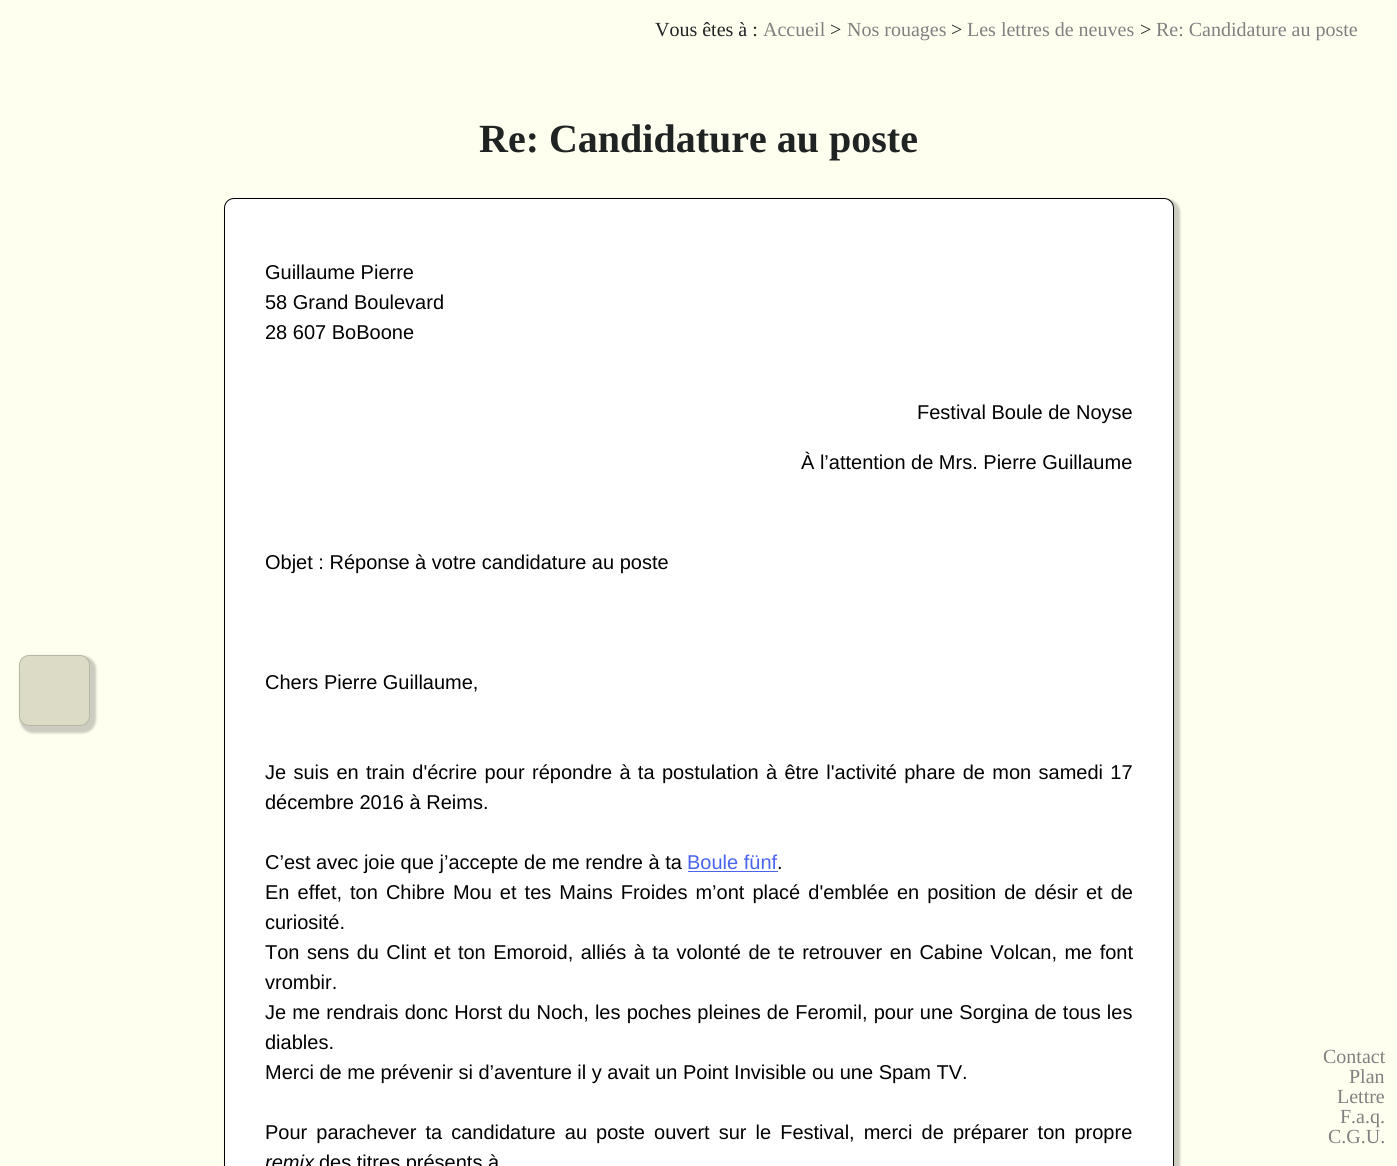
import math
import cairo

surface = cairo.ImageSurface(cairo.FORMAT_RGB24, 1397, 1166)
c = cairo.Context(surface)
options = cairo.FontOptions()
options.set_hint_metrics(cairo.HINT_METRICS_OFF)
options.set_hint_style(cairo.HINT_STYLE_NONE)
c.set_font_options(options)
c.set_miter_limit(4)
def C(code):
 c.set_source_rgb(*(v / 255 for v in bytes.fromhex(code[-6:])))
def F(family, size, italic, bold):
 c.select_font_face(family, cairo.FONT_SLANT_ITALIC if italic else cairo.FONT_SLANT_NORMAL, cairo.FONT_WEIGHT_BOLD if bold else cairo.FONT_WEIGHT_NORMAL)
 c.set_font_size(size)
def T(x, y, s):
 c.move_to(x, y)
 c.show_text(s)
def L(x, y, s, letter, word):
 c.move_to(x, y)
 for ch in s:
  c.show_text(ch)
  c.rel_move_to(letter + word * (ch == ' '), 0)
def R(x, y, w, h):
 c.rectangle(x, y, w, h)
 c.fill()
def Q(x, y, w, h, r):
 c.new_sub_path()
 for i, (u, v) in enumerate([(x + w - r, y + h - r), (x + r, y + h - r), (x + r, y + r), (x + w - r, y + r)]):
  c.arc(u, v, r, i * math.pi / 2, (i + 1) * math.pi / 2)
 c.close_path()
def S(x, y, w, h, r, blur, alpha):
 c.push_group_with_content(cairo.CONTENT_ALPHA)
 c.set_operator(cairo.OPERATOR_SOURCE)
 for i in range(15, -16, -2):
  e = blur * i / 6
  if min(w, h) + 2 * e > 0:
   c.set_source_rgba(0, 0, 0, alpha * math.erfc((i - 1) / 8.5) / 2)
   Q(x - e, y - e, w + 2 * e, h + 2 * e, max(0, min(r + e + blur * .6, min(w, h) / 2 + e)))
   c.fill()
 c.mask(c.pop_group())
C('fffff0')
c.paint()
F('Liberation Serif',20,0,0)
C('1f2322')
T(655,36,'Vous êtes à :')
C('808080')
T(763,36,'Accueil')
C('1f2322')
T(830,36,'>')
C('808080')
T(847,36,'Nos rouages')
C('1f2322')
T(951,36,'>')
C('808080')
T(967,36,'Les lettres de neuves')
C('1f2322')
T(1140,36,'>')
C('808080')
T(1156,36,'Re: Candidature au poste')
C('ccccc0')
S(20,656,76,77,13,1,1)
C('dcdcc6')
Q(19.5,655.5,70,70,9.5)
c.fill_preserve()
C('b6b6a3')
c.set_line_width(1)
c.stroke()
F('Liberation Serif',40,0,1)
C('1f2322')
T(479,152,'Re: Candidature au poste')
C('ccccc0')
S(225,199,955,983,13,1,1)
C('ffffff')
Q(224.5,198.5,949,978,9.5)
c.fill_preserve()
C('000000')
c.stroke()
F('Liberation Sans',20,0,0)
T(265,279,'Guillaume Pierre')
T(265,309,'58 Grand Boulevard')
T(265,339,'28 607 BoBoone')
T(917,419,'Festival Boule de Noyse')
T(801,469,'À l’attention de Mrs. Pierre Guillaume')
T(265,569,'Objet : Réponse à votre candidature au poste')
T(265,689,'Chers Pierre Guillaume,')
L(265,779,'Je suis en train d\'écrire pour répondre à ta postulation à être l\'activité phare de mon samedi 17',0,1.8)
T(265,809,'décembre 2016 à Reims.')
T(265,869,'C’est avec joie que j’accepte de me rendre à ta')
C('4963ee')
T(687,869,'Boule fünf')
R(688,871,90,1)
C('000000')
T(777,869,'.')
L(265,899,'En effet, ton Chibre Mou et tes Mains Froides m’ont placé d\'emblée en position de désir et de',0,2.5)
T(265,929,'curiosité.')
L(265,959,'Ton sens du Clint et ton Emoroid, alliés à ta volonté de te retrouver en Cabine Volcan, me font',0,1.9)
T(265,989,'vrombir.')
L(265,1019,'Je me rendrais donc Horst du Noch, les poches pleines de Feromil, pour une Sorgina de tous les',0,.6)
T(265,1049,'diables.')
T(265,1079,'Merci de me prévenir si d’aventure il y avait un Point Invisible ou une Spam TV.')
L(265,1139,'Pour parachever ta candidature au poste ouvert sur le Festival, merci de préparer ton propre',0,3.5)
F('Liberation Sans',20,1,0)
T(265,1169,'remix')
F('Liberation Sans',20,0,0)
T(319,1169,'des titres présents à')
F('Liberation Serif',20,0,0)
C('808080')
T(1323,1063,'Contact')
T(1349,1083,'Plan')
T(1337,1103,'Lettre')
T(1340,1123,'F.a.q.')
T(1328,1143,'C.G.U.')
surface.write_to_png('o.png')
